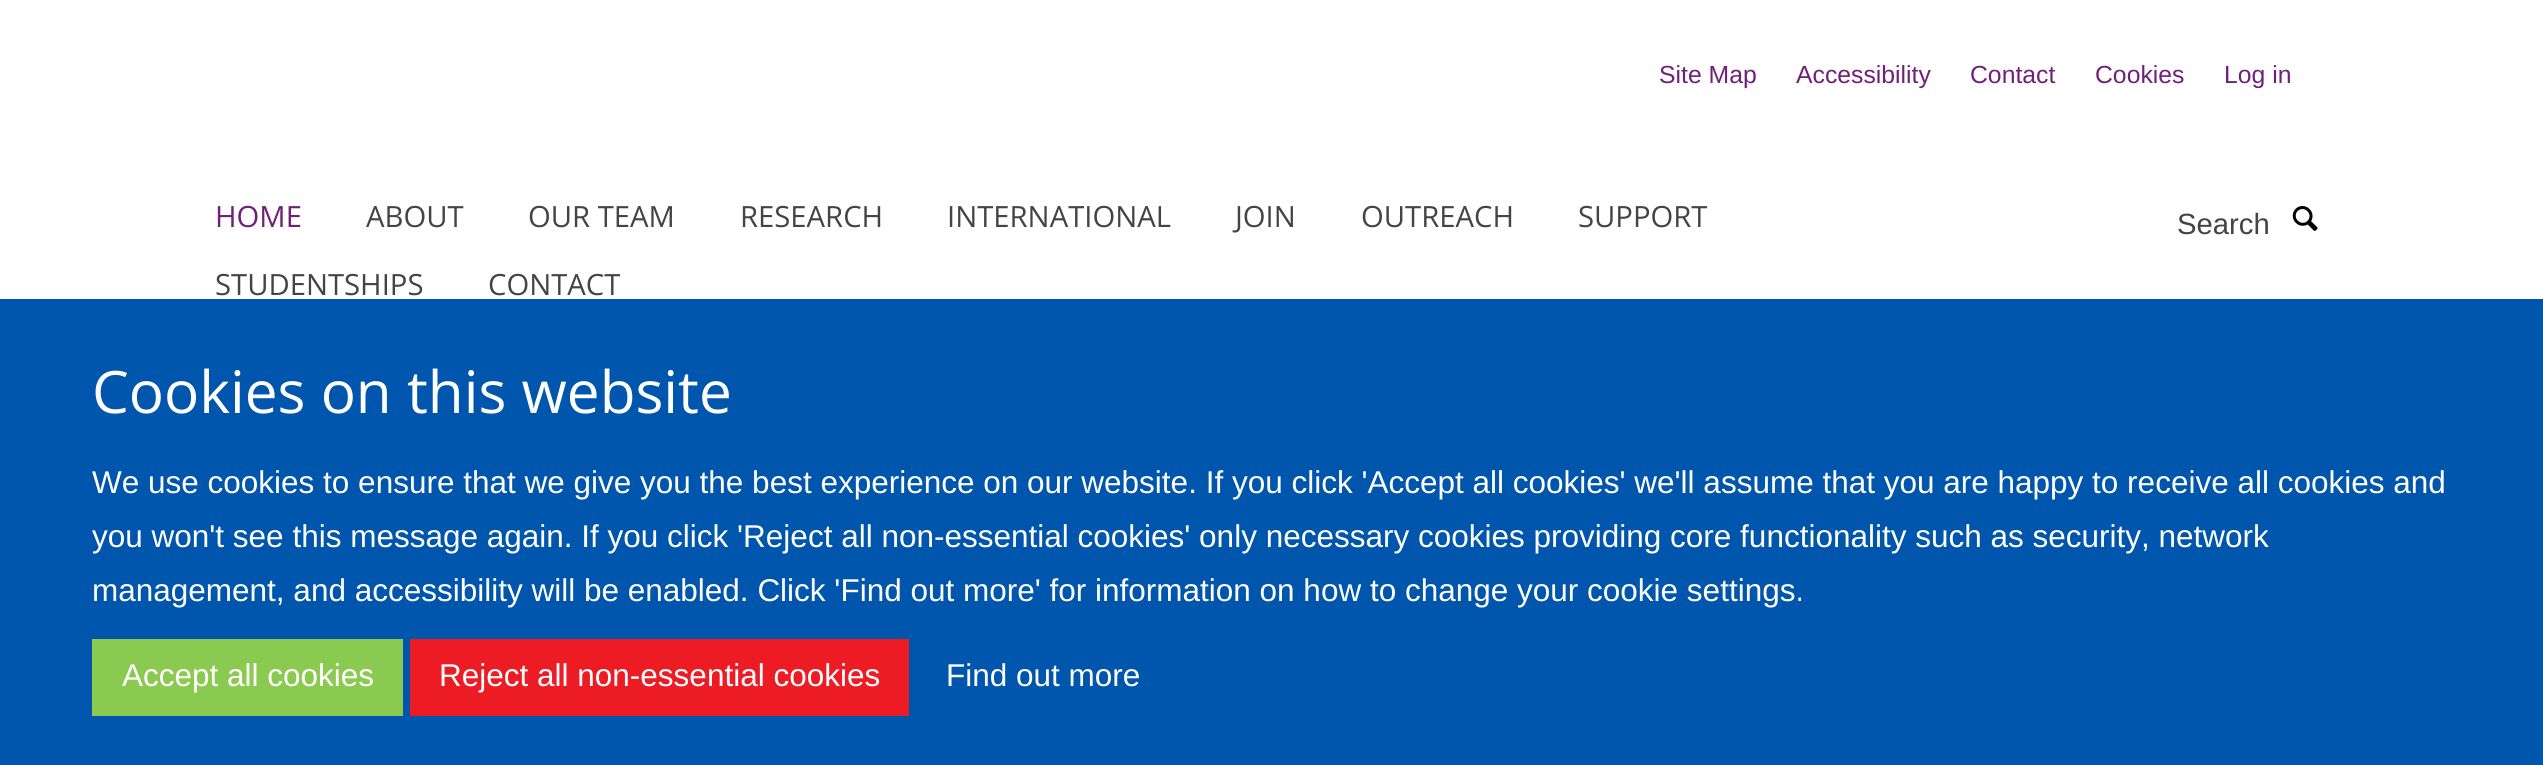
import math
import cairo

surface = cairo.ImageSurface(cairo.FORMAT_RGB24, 2543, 765)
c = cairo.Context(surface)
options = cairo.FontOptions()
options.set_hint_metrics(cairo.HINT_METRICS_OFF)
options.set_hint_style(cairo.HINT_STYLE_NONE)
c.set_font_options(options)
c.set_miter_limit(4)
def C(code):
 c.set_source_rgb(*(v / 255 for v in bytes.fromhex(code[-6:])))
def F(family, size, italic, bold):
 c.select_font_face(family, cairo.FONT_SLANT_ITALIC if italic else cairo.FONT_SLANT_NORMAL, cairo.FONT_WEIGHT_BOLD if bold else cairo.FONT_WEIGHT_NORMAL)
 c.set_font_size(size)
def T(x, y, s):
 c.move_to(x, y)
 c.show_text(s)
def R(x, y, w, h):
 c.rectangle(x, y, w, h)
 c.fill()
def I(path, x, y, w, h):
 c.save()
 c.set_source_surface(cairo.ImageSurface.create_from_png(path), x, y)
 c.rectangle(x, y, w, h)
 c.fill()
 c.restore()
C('ffffff')
c.paint()
F('Liberation Sans',24.75,0,0)
C('6f2078')
T(1659,83,'Site Map')
T(1796,83,'Accessibility')
T(1970,83,'Contact')
T(2095,83,'Cookies')
T(2224,83,'Log in')
F('Open Sans',29.25,0,0)
T(215,227,'HOME')
C('444444')
T(366,227,'ABOUT')
T(528,227,'OUR TEAM')
T(740,227,'RESEARCH')
T(947,227,'INTERNATIONAL')
T(1235,227,'JOIN')
T(1361,227,'OUTREACH')
T(1578,227,'SUPPORT')
T(215,295,'STUDENTSHIPS')
T(488,295,'CONTACT')
F('Liberation Sans',29.25,0,0)
T(2177,234,'Search')
I('1.png',2292,206,26,25)
C('0055ad')
R(0,299,2543,466)
F('Open Sans',58.5,0,0)
C('ffffff')
T(92,413,'Cookies on this website')
F('Liberation Sans',31.5,0,0)
T(92,493,'We use cookies to ensure that we give you the best experience on our website. If you click \'Accept all cookies\' we\'ll assume that you are happy to receive all cookies and')
T(92,547,'you won\'t see this message again. If you click \'Reject all non-essential cookies\' only necessary cookies providing core functionality such as security, network')
T(92,601,'management, and accessibility will be enabled. Click \'Find out more\' for information on how to change your cookie settings.')
C('8bca50')
R(92,639,311,77)
C('ffffff')
T(122,686,'Accept all cookies')
C('ed1c24')
R(410,639,499,77)
C('ffffff')
T(439,686,'Reject all non-essential cookies')
T(946,686,'Find out more')
surface.write_to_png('o.png')
